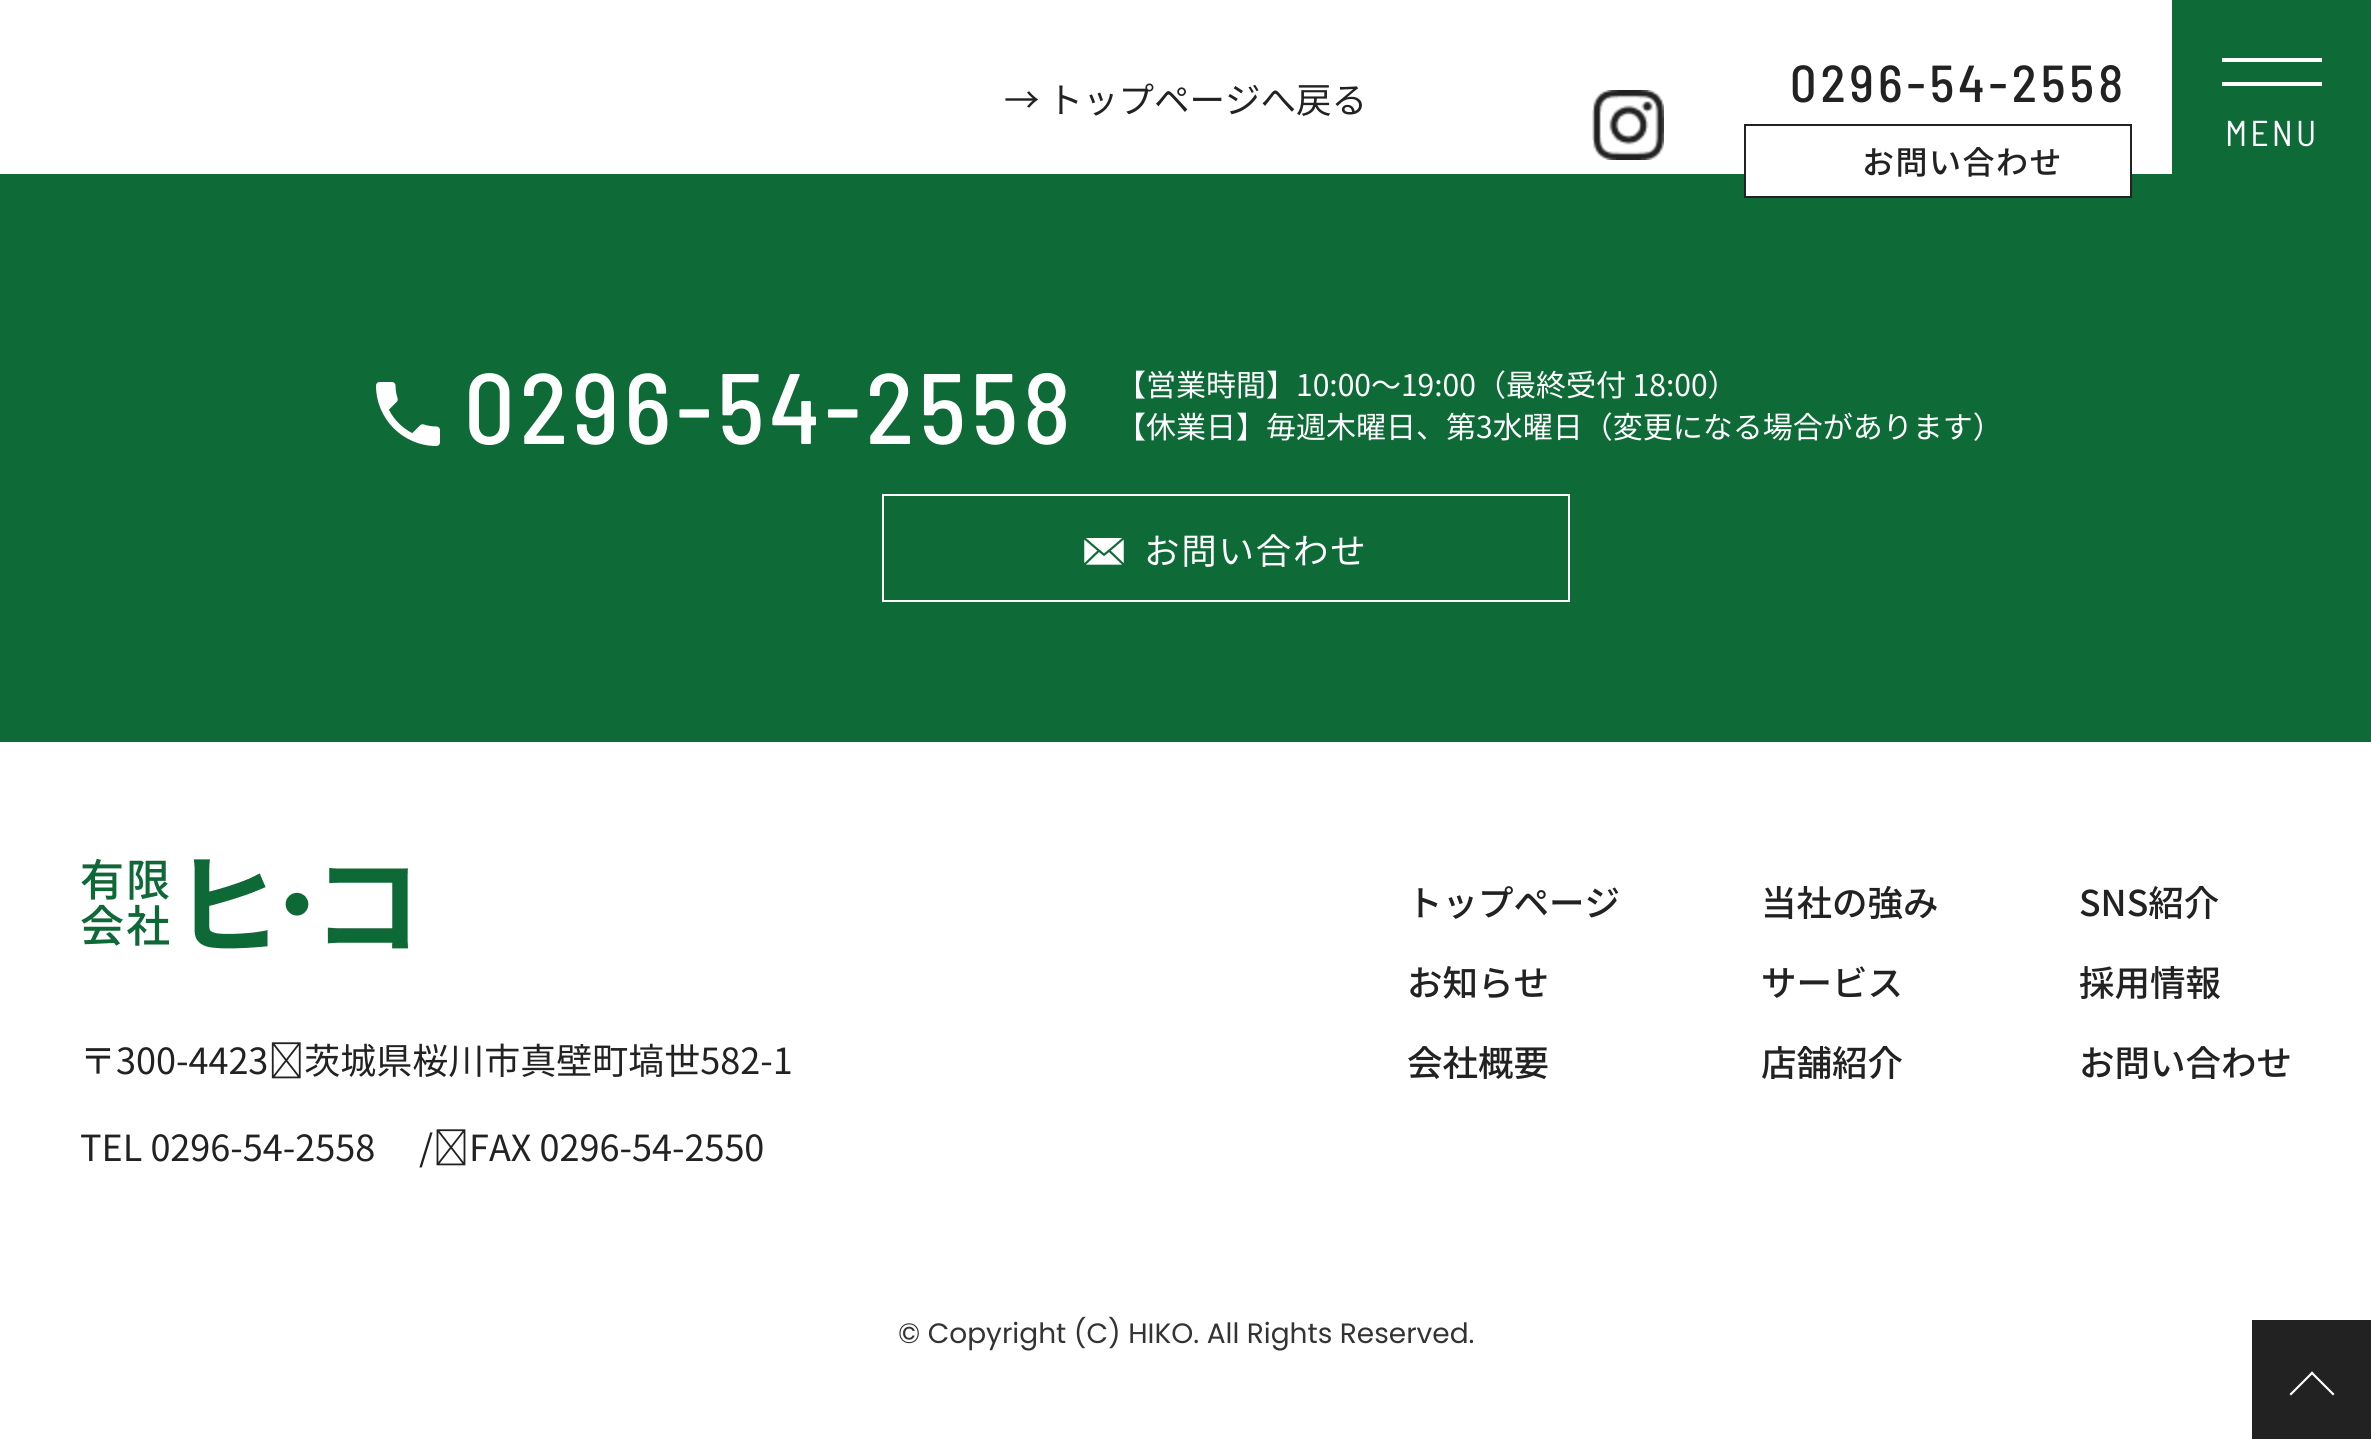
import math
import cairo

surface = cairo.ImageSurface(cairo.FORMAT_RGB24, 2371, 1439)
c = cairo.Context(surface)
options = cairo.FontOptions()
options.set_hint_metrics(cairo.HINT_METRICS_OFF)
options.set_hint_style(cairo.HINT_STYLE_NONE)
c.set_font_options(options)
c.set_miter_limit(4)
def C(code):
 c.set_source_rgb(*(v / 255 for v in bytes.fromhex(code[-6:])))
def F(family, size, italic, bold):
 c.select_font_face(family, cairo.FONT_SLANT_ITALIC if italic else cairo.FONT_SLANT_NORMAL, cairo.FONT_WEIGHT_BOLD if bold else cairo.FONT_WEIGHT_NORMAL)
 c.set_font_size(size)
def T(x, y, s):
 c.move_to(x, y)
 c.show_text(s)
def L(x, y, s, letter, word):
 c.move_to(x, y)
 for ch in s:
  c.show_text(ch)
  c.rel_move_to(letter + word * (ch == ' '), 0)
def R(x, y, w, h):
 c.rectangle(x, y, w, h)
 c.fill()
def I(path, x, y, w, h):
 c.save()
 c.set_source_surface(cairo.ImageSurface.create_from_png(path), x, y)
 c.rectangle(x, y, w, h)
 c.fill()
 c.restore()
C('ffffff')
c.paint()
F('Noto Sans JP',35.5,0,0)
C('222222')
T(1004,113,'→ トップページへ戻る')
I('1.png',1592,90,72,70)
F('Barlow Semi Condensed Medium',52,0,0)
L(1790,102,'0296-54-2558',4.2,0)
C('0e6a37')
R(0,174,2371,568)
C('ffffff')
R(1746,174,384,22)
c.rectangle(1745,125,386,72)
C('222222')
c.stroke()
F('Noto Sans JP Medium',32,0,0)
L(1862,174,'お問い合わせ',1.5,0)
C('0e6a37')
R(2172,0,199,174)
C('ffffff')
R(2222,58,100,4)
R(2222,82,100,4)
F('Barlow Semi Condensed',36,0,0)
L(2225,146,'MENU',3,0)
I('2.png',376,382,64,64)
F('Barlow Semi Condensed Medium',100,0,0)
L(464,444,'0296-54-2558',5,0)
F('Noto Sans JP',30,0,0)
T(1116,396,'【営業時間】10:00〜19:00（最終受付 18:00）')
T(1116,438,'【休業日】毎週木曜日、第3水曜日（変更になる場合があります）')
c.rectangle(883,495,686,106)
c.stroke()
I('3.png',1084,538,40,27)
F('Noto Sans JP',35.5,0,0)
L(1144,564,'お問い合わせ',1.75,0)
F('Noto Sans JP Medium',35.5,0,0)
C('222222')
T(1407,916,'トップページ')
T(1407,996,'お知らせ')
T(1407,1076,'会社概要')
T(1761,916,'当社の強み')
T(1761,996,'サービス')
T(1761,1076,'店舗紹介')
T(2079,916,'SNS紹介')
T(2079,996,'採用情報')
T(2079,1076,'お問い合わせ')
I('4.png',81,858,327,91)
F('Noto Sans JP',36,0,0)
T(80,1074,'〒300-4423 茨城県桜川市真壁町塙世582-1')
T(80,1161,'TEL 0296-54-2558')
T(419,1161,'/ FAX 0296-54-2550')
F('Poppins',28,0,0)
C('333333')
T(898,1343,'© Copyright (C) HIKO. All Rights Reserved.')
C('222222')
R(2252,1320,119,119)
C('ffffff')
c.new_path()
c.move_to(2289.5,1394)
c.line_to(2312,1371.5)
c.line_to(2313.5,1373)
c.line_to(2291,1395.5)
c.close_path()
c.fill()
c.new_path()
c.move_to(2310.5,1373)
c.line_to(2312,1371.5)
c.line_to(2334.5,1394)
c.line_to(2333,1395.5)
c.close_path()
c.fill()
surface.write_to_png('o.png')
